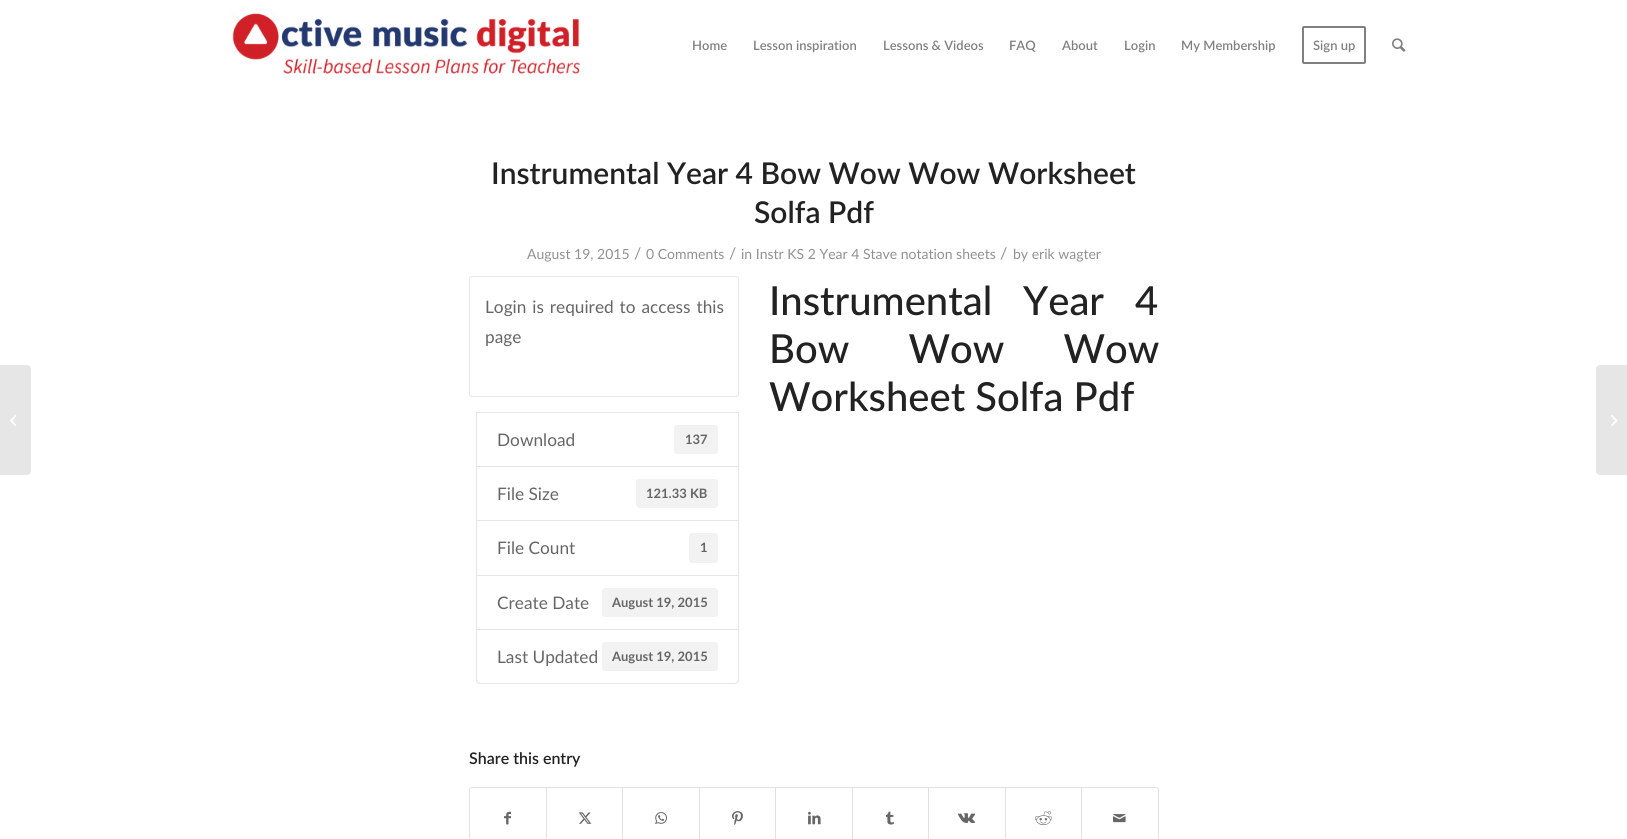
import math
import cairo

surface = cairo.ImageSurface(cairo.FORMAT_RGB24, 1627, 839)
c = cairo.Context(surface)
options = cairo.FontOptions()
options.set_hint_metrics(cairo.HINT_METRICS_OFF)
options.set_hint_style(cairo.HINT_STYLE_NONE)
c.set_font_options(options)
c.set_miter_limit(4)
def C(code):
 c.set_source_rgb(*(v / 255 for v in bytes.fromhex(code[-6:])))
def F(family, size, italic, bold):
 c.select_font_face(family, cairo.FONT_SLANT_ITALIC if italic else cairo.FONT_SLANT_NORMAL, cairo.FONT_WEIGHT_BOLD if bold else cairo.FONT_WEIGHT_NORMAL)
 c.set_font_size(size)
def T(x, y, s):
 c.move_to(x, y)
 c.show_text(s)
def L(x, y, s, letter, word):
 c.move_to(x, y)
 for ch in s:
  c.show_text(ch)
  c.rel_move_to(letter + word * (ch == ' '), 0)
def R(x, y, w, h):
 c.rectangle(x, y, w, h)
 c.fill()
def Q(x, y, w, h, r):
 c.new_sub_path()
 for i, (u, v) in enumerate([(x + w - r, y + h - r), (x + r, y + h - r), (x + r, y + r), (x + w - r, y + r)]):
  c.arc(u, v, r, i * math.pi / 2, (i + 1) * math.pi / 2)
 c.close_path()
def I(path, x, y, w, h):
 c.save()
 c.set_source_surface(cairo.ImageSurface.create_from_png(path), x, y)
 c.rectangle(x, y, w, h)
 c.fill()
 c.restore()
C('ffffff')
c.paint()
I('1.png',230,10,350,64)
F('Lato SemiBold',13,0,0)
C('808080')
T(692,50,'Home')
T(753,50,'Lesson inspiration')
T(883,50,'Lessons & Videos')
T(1009,50,'FAQ')
T(1062,50,'About')
T(1124,50,'Login')
T(1181,50,'My Membership')
Q(1303,27,62,36,1)
c.stroke()
T(1313,50,'Sign up')
I('2.png',1392,38,14,14)
C('e6e6e6')
c.new_path()
c.move_to(0,365)
c.line_to(27,365)
c.curve_to(29,365,31,367,31,369)
c.line_to(31,471)
c.curve_to(31,473,29,475,27,475)
c.line_to(0,475)
c.close_path()
c.fill()
I('3.png',10,415,7,11)
F('Lato SemiBold',30,0,0)
C('222222')
T(491,184,'Instrumental Year 4 Bow Wow Wow Worksheet')
T(754,223,'Solfa Pdf')
F('Lato',14,0,0)
C('919191')
T(527,259,'August 19, 2015')
F('Lato',16,0,0)
T(634,259,'/')
F('Lato',14,0,0)
T(646,259,'0 Comments')
F('Lato',16,0,0)
T(729,259,'/')
F('Lato',14,0,0)
T(741,259,'in Instr KS 2 Year 4 Stave notation sheets')
F('Lato',16,0,0)
T(1000,259,'/')
F('Lato',14,0,0)
T(1013,259,'by erik wagter')
Q(469.5,276.5,269,120,2.5)
C('e5e5e5')
c.set_line_width(1)
c.stroke()
F('Lato',17.25,0,0)
C('666666')
L(485,313,'Login is required to access this',0,1.5)
T(485,343,'page')
c.rectangle(476.5,412.5,262,54)
C('e5e5e5')
c.stroke()
C('666666')
T(497,446,'Download')
C('f2f2f2')
Q(674,425,44,29,3)
c.fill()
F('Lato',13,0,1)
C('666666')
T(685,444,'137')
c.rectangle(476.5,466.5,262,54)
C('e5e5e5')
c.stroke()
F('Lato',17.25,0,0)
C('666666')
T(497,500,'File Size')
C('f2f2f2')
Q(636,479,82,29,3)
c.fill()
F('Lato',13,0,1)
C('666666')
T(646,498,'121.33 KB')
c.rectangle(476.5,520.5,262,55)
C('e5e5e5')
c.stroke()
F('Lato',17.25,0,0)
C('666666')
T(497,554,'File Count')
C('f2f2f2')
Q(689,533,29,30,3)
c.fill()
F('Lato',13,0,1)
C('666666')
T(700,552,'1')
c.rectangle(476.5,575.5,262,54)
C('e5e5e5')
c.stroke()
F('Lato',17.25,0,0)
C('666666')
T(497,609,'Create Date')
C('f2f2f2')
Q(602,588,116,29,3)
c.fill()
F('Lato',13,0,1)
C('666666')
T(612,607,'August 19, 2015')
C('ffffff')
c.new_path()
c.move_to(476.5,629.5)
c.line_to(738.5,629.5)
c.line_to(738.5,680)
c.curve_to(738.5,682,737,683.5,735,683.5)
c.line_to(480,683.5)
c.curve_to(478,683.5,476.5,682,476.5,680)
c.close_path()
c.fill_preserve()
C('e5e5e5')
c.stroke()
F('Lato',17.25,0,0)
C('666666')
T(497,663,'Last Updated')
C('f2f2f2')
Q(602,642,116,29,3)
c.fill()
F('Lato',13,0,1)
C('666666')
T(612,661,'August 19, 2015')
F('Lato Medium',40,0,0)
C('222222')
T(769,315,'Instrumental')
L(1023,315,'Year 4',0,21)
L(769,363,'Bow Wow Wow',0,49)
T(769,411,'Worksheet Solfa Pdf')
F('Lato SemiBold',16,0,0)
T(469,764,'Share this entry')
Q(469.5,787.5,689,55,2.5)
C('e1e1e1')
c.stroke()
I('4.png',504,811,7,14)
R(546,788,1,51)
I('5.png',578,812,14,12)
R(622,788,1,51)
I('6.png',655,812,12,13)
R(699,788,1,51)
I('7.png',732,811,11,14)
R(775,788,1,51)
I('8.png',808,811,13,14)
R(852,788,1,51)
I('9.png',886,811,8,14)
R(928,788,1,51)
I('10.png',958,813,17,10)
R(1005,788,1,51)
I('11.png',1035,811,17,15)
R(1081,788,1,51)
I('12.png',1113,814,13,9)
C('e6e6e6')
c.new_path()
c.move_to(1600,365)
c.line_to(1627,365)
c.line_to(1627,475)
c.line_to(1600,475)
c.curve_to(1598,475,1596,473,1596,471)
c.line_to(1596,369)
c.curve_to(1596,367,1598,365,1600,365)
c.close_path()
c.fill()
I('13.png',1611,415,7,11)
surface.write_to_png('o.png')
